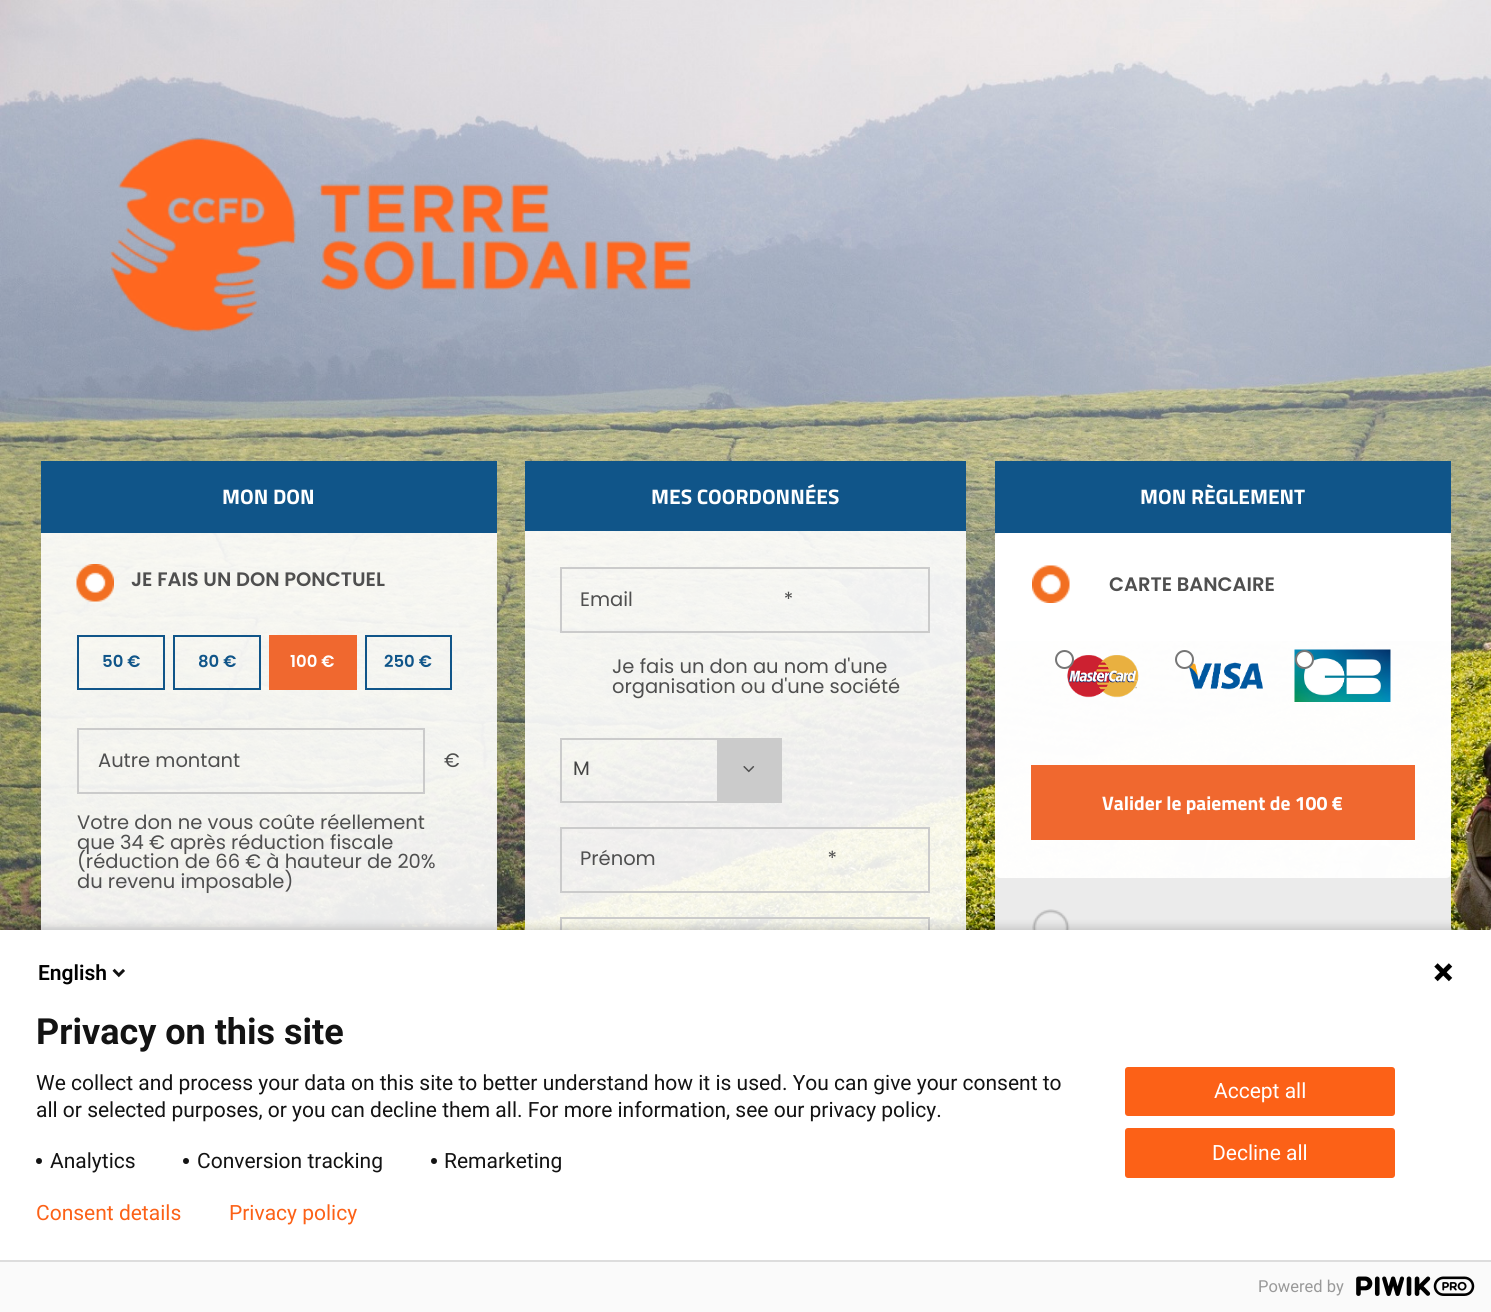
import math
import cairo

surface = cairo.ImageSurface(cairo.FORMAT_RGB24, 1491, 1312)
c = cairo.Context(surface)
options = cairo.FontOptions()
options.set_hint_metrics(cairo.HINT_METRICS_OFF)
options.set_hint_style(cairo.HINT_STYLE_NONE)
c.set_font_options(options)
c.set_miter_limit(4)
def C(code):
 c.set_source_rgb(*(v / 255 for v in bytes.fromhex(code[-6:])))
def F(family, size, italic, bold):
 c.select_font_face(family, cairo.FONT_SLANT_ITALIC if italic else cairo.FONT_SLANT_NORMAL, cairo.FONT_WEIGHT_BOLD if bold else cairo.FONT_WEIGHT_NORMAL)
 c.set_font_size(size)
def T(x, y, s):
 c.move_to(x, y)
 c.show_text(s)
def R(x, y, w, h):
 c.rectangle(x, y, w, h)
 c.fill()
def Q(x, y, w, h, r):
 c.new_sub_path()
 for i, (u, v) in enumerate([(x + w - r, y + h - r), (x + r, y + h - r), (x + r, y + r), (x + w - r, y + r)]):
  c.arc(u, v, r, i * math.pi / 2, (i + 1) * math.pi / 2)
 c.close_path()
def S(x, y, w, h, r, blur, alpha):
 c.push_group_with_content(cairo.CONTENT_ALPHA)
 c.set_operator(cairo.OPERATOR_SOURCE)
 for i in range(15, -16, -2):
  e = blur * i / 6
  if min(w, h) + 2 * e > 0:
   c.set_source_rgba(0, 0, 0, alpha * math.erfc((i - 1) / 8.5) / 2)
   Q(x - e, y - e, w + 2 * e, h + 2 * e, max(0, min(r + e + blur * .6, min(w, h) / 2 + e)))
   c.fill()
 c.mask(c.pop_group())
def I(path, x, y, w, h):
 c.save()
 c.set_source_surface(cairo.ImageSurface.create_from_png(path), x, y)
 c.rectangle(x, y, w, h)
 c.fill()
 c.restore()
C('ffffff')
c.paint()
I('1.png',0,0,1491,930)
I('2.png',110,137,581,195)
C('105589')
R(41,461,456,72)
F('Titillium Web',21,0,1)
C('ffffff')
T(222,504,'MON DON')
c.set_source_rgba(1,1,1,0.9)
R(41,533,456,394)
I('3.png',76,564,38,38)
F('Poppins SemiBold',19.5,0,0)
C('4f4f4f')
T(131,586,'JE FAIS UN DON PONCTUEL')
c.rectangle(78,636,86,53)
C('105589')
c.stroke()
F('Poppins SemiBold',16.5,0,0)
T(102,667,'50 €')
c.rectangle(174,636,86,53)
c.stroke()
T(198,667,'80 €')
C('f0682f')
R(269,635,88,55)
C('ffffff')
T(290,667,'100 €')
c.rectangle(366,636,85,53)
C('105589')
c.stroke()
T(384,667,'250 €')
c.rectangle(78,729,346,64)
C('cbcbcb')
c.stroke()
F('Poppins',19.5,0,0)
C('4f4f4f')
T(98,767,'Autre montant')
T(444,767,'€')
T(77,829,'Votre don ne vous coûte réellement')
T(77,849,'que 34 € après réduction fiscale')
T(77,868,'(réduction de 66 € à hauteur de 20%')
T(77,888,'du revenu imposable)')
C('ebebeb')
R(41,927,456,3)
C('105589')
R(525,461,441,70)
F('Titillium Web',21,0,1)
C('ffffff')
T(651,504,'MES COORDONNÉES')
c.set_source_rgba(1,1,1,0.9)
R(525,531,441,399)
c.rectangle(561,568,368,64)
C('cbcbcb')
c.stroke()
F('Poppins',19.5,0,0)
C('4f4f4f')
T(580,606,'Email                             *')
T(612,673,'Je fais un don au nom d\'une')
T(612,693,'organisation ou d\'une société')
c.rectangle(561,739,220,63)
C('cbcbcb')
c.stroke()
C('444444')
T(573,775,'M')
C('cbcbcb')
R(717,740,63,61)
I('4.png',743,766,12,7)
c.rectangle(561,828,368,64)
c.stroke()
C('4f4f4f')
T(580,865,'Prénom                                 *')
c.rectangle(561,918,368,64)
C('cbcbcb')
c.stroke()
C('105589')
R(995,461,456,72)
F('Titillium Web',21,0,1)
C('ffffff')
T(1140,504,'MON RÈGLEMENT')
c.set_source_rgba(1,1,1,0.9)
R(995,533,456,350)
C('ffffff')
c.new_path()
c.move_to(1000,533)
c.line_to(1446,533)
c.curve_to(1449,533,1451,535,1451,538)
c.line_to(1451,641)
c.line_to(995,641)
c.line_to(995,538)
c.curve_to(995,535,997,533,1000,533)
c.close_path()
c.fill()
I('5.png',1032,565,38,38)
F('Poppins SemiBold',19.5,0,0)
C('4f4f4f')
T(1109,591,'CARTE BANCAIRE')
c.set_source_rgba(1,1,1,0.9)
c.new_path()
c.move_to(995,641)
c.line_to(1451,641)
c.line_to(1451,873)
c.curve_to(1451,876,1449,878,1446,878)
c.line_to(1000,878)
c.curve_to(997,878,995,876,995,873)
c.close_path()
c.fill()
I('6.png',1067,655,72,43)
C('ffffff')
c.arc(1064.5,659.5,8.5,0,2 * math.pi)
c.fill_preserve()
C('767676')
c.stroke()
I('7.png',1188,662,75,28)
C('ffffff')
c.arc(1184.5,659.5,8.5,0,2 * math.pi)
c.fill_preserve()
C('767676')
c.stroke()
I('8.png',1294,649,97,53)
C('ffffff')
c.arc(1304.5,659.5,8.5,0,2 * math.pi)
c.fill_preserve()
C('767676')
c.stroke()
C('f0682f')
R(1031,765,384,75)
F('Titillium Web',19.5,0,1)
C('ffffff')
T(1102,810,'Valider le paiement de 100 €')
C('ebebeb')
Q(995,878,456,106,5)
c.fill()
I('9.png',1032,909,38,21)
C('000000')
S(-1,926,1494,385,0,4,.14)
C('ffffff')
R(0,930,1491,330)
F('Roboto SemiBold',21,0,0)
C('000000')
T(38,980,'English')
I('10.png',112,968,13,10)
I('11.png',1434,963,19,19)
F('Roboto',36,0,1)
C('131313')
T(36,1044,'Privacy on this site')
F('Roboto',21,0,0)
T(36,1090,'We collect and process your data on this site to better understand how it is used. You can give your consent to')
T(36,1117,'all or selected purposes, or you can decline them all. For more information, see our privacy policy.')
c.new_path()
c.arc(39,1161,3,0,2 * math.pi)
c.fill()
T(50,1168,'Analytics')
c.new_path()
c.arc(186,1161,3,0,2 * math.pi)
c.fill()
T(197,1168,'Conversion tracking')
c.new_path()
c.arc(434,1161,3,0,2 * math.pi)
c.fill()
T(444,1168,'Remarketing')
C('fc6117')
Q(1126,1068,268,47,2)
c.fill_preserve()
c.stroke()
C('ffffff')
T(1214,1098,'Accept all')
C('fc6117')
Q(1126,1129,268,48,2)
c.fill_preserve()
c.stroke()
C('ffffff')
T(1212,1160,'Decline all')
C('fc6117')
T(36,1220,'Consent details')
T(229,1220,'Privacy policy')
C('fafafa')
R(0,1262,1491,50)
C('dddddd')
R(0,1260,1491,2)
F('Roboto',16.5,0,0)
C('999999')
T(1258,1292,'Powered by')
I('12.png',1356,1276,119,20)
surface.write_to_png('o.png')
